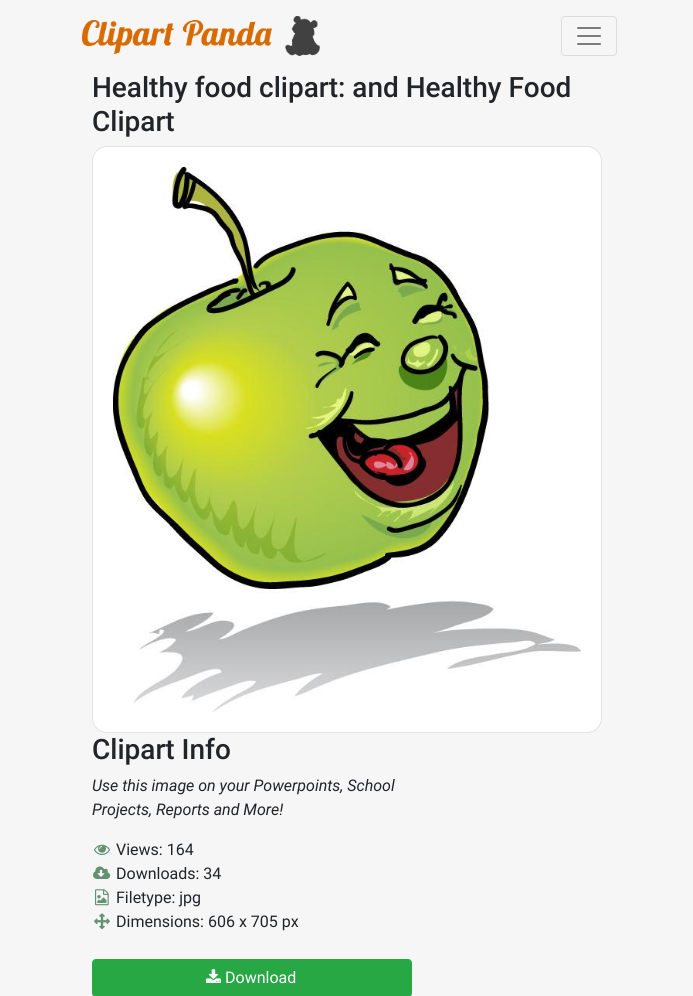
import math
import cairo

surface = cairo.ImageSurface(cairo.FORMAT_RGB24, 693, 996)
c = cairo.Context(surface)
options = cairo.FontOptions()
options.set_hint_metrics(cairo.HINT_METRICS_OFF)
options.set_hint_style(cairo.HINT_STYLE_NONE)
c.set_font_options(options)
c.set_miter_limit(4)
def C(code):
 c.set_source_rgb(*(v / 255 for v in bytes.fromhex(code[-6:])))
def F(family, size, italic, bold):
 c.select_font_face(family, cairo.FONT_SLANT_ITALIC if italic else cairo.FONT_SLANT_NORMAL, cairo.FONT_WEIGHT_BOLD if bold else cairo.FONT_WEIGHT_NORMAL)
 c.set_font_size(size)
def T(x, y, s):
 c.move_to(x, y)
 c.show_text(s)
def Q(x, y, w, h, r):
 c.new_sub_path()
 for i, (u, v) in enumerate([(x + w - r, y + h - r), (x + r, y + h - r), (x + r, y + r), (x + w - r, y + r)]):
  c.arc(u, v, r, i * math.pi / 2, (i + 1) * math.pi / 2)
 c.close_path()
def I(path, x, y, w, h):
 c.save()
 c.set_source_surface(cairo.ImageSurface.create_from_png(path), x, y)
 c.rectangle(x, y, w, h)
 c.fill()
 c.restore()
C('f6f6f6')
c.paint()
I('1.png',82,16,239,40)
Q(561.5,16.5,55,39,3.5)
C('dddddd')
c.set_line_width(1)
c.stroke()
I('2.png',577,27,24,18)
F('Roboto Medium',28,0,0)
C('212529')
T(92,97,'Healthy food clipart: and Healthy Food')
T(92,131,'Clipart')
C('ffffff')
Q(92.5,146.5,509,586,14.5)
c.fill_preserve()
C('e3e3e3')
c.stroke()
I('3.png',113,167,468,545)
C('212529')
T(92,759,'Clipart Info')
F('Roboto',16,1,0)
T(92,791,'Use this image on your Powerpoints, School')
T(92,815,'Projects, Reports and More!')
I('4.png',94,844,16,11)
F('Roboto',16,0,0)
T(116,855,'Views: 164')
I('5.png',93,866,18,13)
T(116,879,'Downloads: 34')
I('6.png',95,889,14,17)
T(116,903,'Filetype: jpg')
I('7.png',94,913,16,17)
T(116,927,'Dimensions: 606 x 705 px')
C('28a745')
Q(92.5,959.5,319,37,3.5)
c.fill_preserve()
c.stroke()
I('8.png',206,969,15,14)
C('ffffff')
T(225,983,'Download')
surface.write_to_png('o.png')
